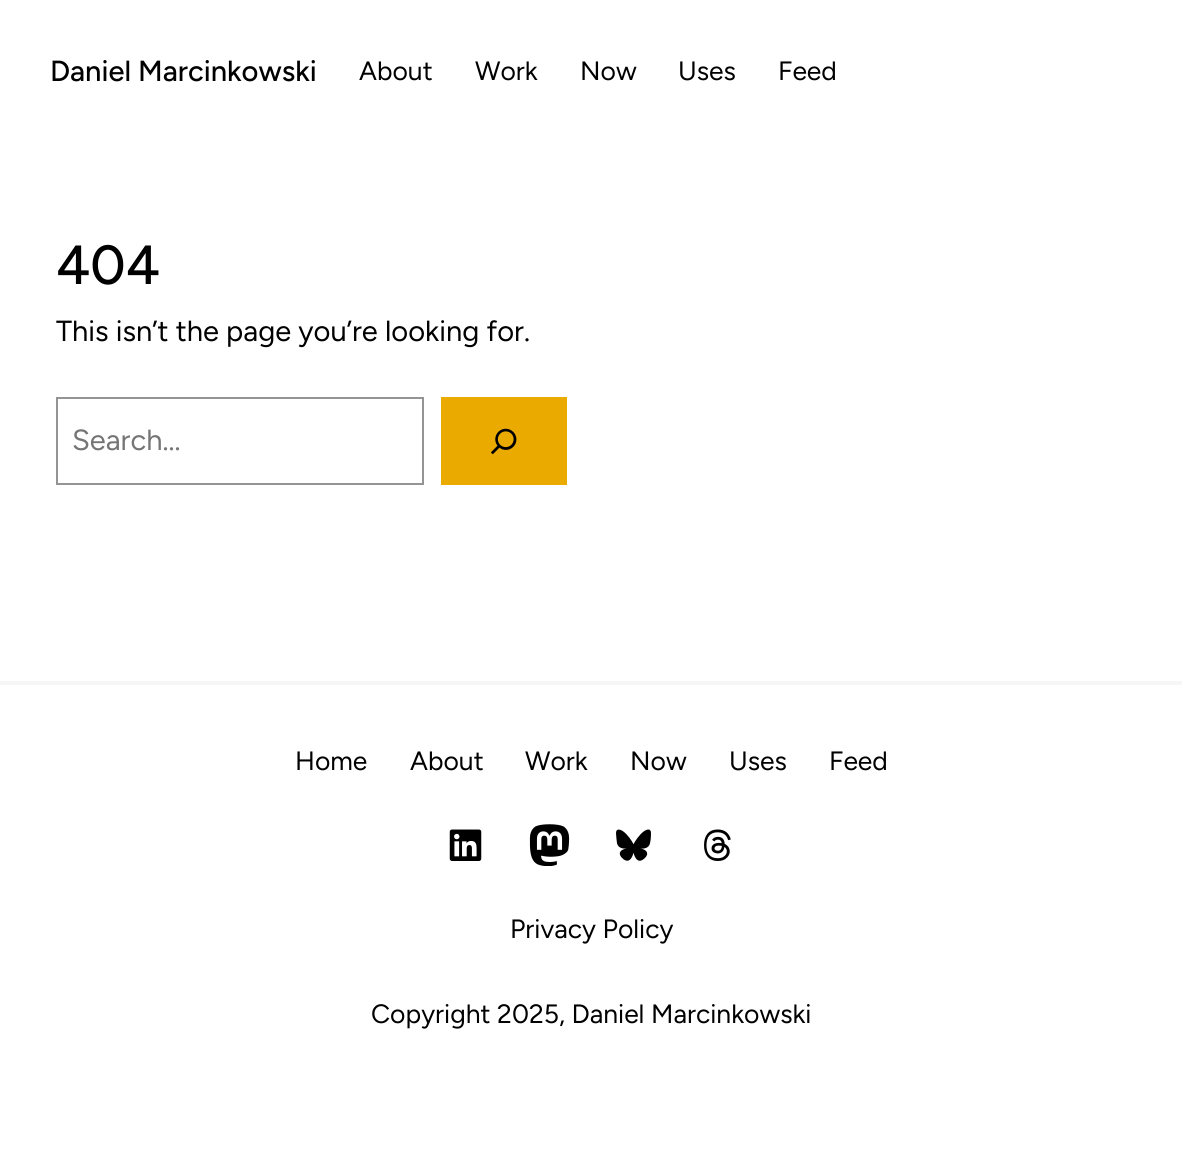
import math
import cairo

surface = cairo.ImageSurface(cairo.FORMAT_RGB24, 1182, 1161)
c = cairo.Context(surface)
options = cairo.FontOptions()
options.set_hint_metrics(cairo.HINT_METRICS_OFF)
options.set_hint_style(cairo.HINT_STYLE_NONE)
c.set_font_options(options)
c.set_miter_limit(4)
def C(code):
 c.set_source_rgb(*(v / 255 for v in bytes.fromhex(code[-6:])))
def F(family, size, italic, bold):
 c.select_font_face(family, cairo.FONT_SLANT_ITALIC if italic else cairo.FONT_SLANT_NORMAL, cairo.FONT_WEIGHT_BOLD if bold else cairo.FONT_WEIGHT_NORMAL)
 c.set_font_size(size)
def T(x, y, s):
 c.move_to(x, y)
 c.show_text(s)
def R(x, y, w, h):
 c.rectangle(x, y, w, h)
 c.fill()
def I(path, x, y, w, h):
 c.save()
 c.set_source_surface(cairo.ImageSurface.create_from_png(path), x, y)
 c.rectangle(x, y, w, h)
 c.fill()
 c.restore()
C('ffffff')
c.paint()
F('Figtree Medium',29.1,0,0)
C('000000')
T(50,81,'Daniel Marcinkowski')
F('Figtree',26.5,0,0)
T(359,80,'About')
T(475,80,'Work')
T(580,80,'Now')
T(678,80,'Uses')
T(778,80,'Feed')
F('Figtree Medium',55,0,0)
T(56,284,'404')
F('Figtree',29.1,0,0)
T(56,341,'This isn’t the page you’re looking for.')
c.rectangle(57,398,366,86)
C('949494')
c.stroke()
C('757575')
T(72,450,'Search...')
C('eaaa00')
R(441,397,126,88)
I('1.png',491,428,26,27)
C('f6f6f6')
R(0,681,1182,4)
F('Figtree',26.5,0,0)
C('000000')
T(295,770,'Home')
T(410,770,'About')
T(525,770,'Work')
T(630,770,'Now')
T(729,770,'Uses')
T(829,770,'Feed')
I('2.png',449,829,33,32)
I('3.png',529,824,41,42)
I('4.png',616,829,35,32)
I('5.png',704,829,27,32)
T(510,938,'Privacy Policy')
T(371,1023,'Copyright 2025, Daniel Marcinkowski')
surface.write_to_png('o.png')
